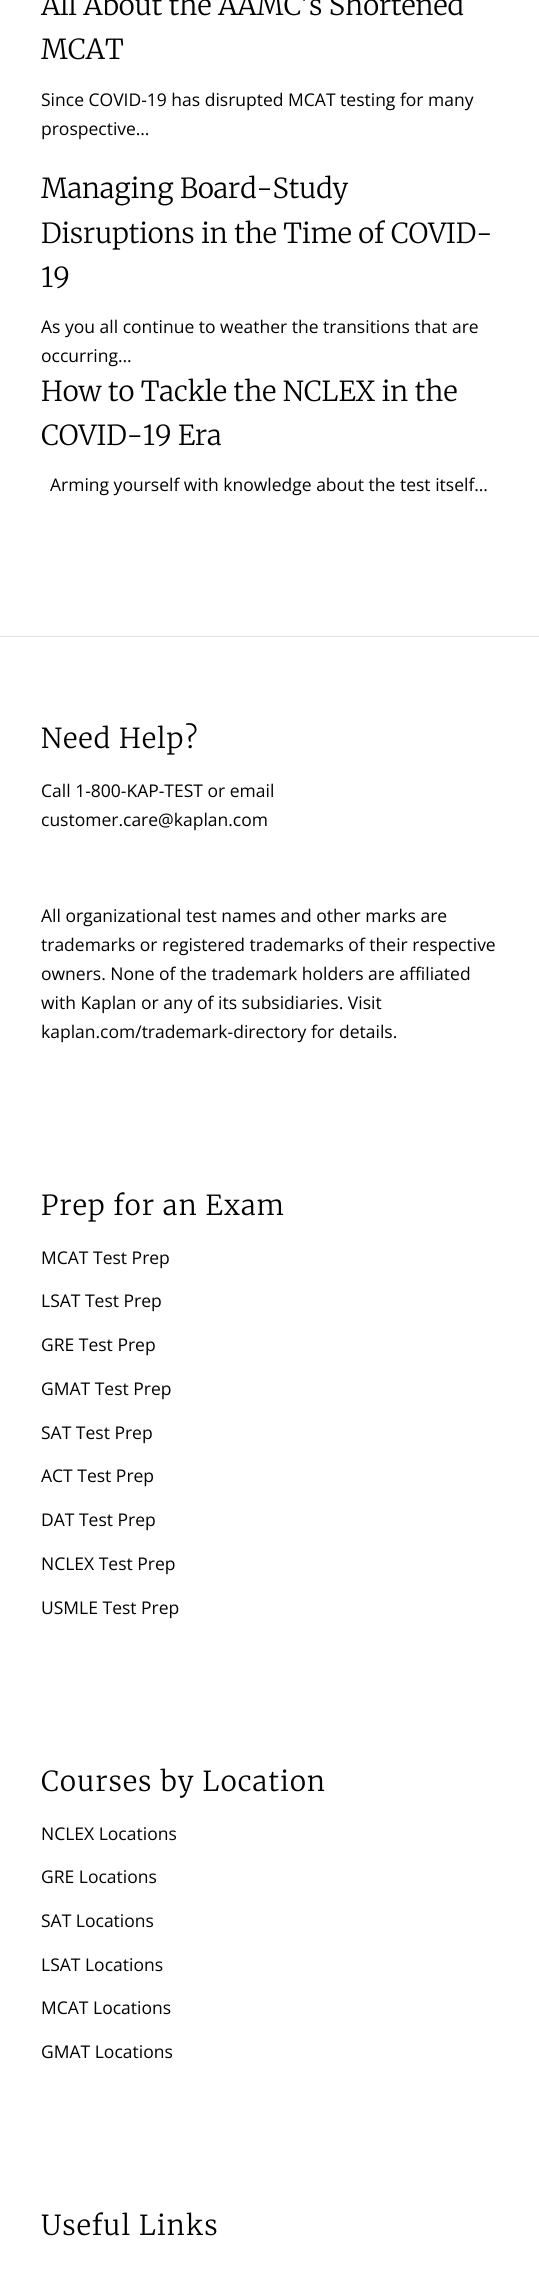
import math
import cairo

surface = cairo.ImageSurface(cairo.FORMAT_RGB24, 539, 2275)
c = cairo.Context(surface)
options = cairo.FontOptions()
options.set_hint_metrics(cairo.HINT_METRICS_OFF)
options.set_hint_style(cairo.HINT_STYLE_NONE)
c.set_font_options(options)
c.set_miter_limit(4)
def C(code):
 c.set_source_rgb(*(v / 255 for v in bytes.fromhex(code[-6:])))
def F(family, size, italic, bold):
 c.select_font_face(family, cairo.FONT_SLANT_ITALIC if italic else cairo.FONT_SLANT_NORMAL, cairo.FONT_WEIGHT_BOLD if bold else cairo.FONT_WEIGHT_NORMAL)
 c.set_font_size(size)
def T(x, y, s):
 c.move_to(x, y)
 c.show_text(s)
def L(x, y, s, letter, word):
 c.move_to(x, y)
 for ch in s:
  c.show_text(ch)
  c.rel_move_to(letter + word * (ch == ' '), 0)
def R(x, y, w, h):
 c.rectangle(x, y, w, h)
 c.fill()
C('ffffff')
c.paint()
F('Merriweather Light',27.5,0,0)
C('000000')
T(41,15,'All About the AAMC\'s Shortened')
T(41,59,'MCAT')
F('Open Sans',17.5,0,0)
T(41,106,'Since COVID-19 has disrupted MCAT testing for many')
T(41,135,'prospective…')
F('Merriweather Light',27.5,0,0)
T(41,198,'Managing Board-Study')
T(41,243,'Disruptions in the Time of COVID-')
T(41,287,'19')
F('Open Sans',17.5,0,0)
T(41,333,'As you all continue to weather the transitions that are')
T(41,362,'occurring…')
F('Merriweather Light',27.5,0,0)
T(41,401,'How to Tackle the NCLEX in the')
T(41,445,'COVID-19 Era')
F('Open Sans',17.5,0,0)
T(50,491,'Arming yourself with knowledge about the test itself…')
C('e1e1e1')
R(0,636,539,1)
F('Merriweather Light',27.5,0,0)
C('000000')
L(41,748,'Need Help?',1.25,0)
F('Open Sans',17.5,0,0)
T(41,797,'Call 1-800-KAP-TEST or email')
T(41,826,'customer.care@kaplan.com')
T(41,922,'All organizational test names and other marks are')
T(41,951,'trademarks or registered trademarks of their respective')
T(41,980,'owners. None of the trademark holders are affiliated')
T(41,1009,'with Kaplan or any of its subsidiaries. Visit')
T(41,1038,'kaplan.com/trademark-directory for details.')
F('Merriweather Light',27.5,0,0)
L(41,1215,'Prep for an Exam',1.25,0)
F('Open Sans',17.5,0,0)
T(41,1264,'MCAT Test Prep')
T(41,1307,'LSAT Test Prep')
T(41,1351,'GRE Test Prep')
T(41,1395,'GMAT Test Prep')
T(41,1439,'SAT Test Prep')
T(41,1482,'ACT Test Prep')
T(41,1526,'DAT Test Prep')
T(41,1570,'NCLEX Test Prep')
T(41,1614,'USMLE Test Prep')
F('Merriweather Light',27.5,0,0)
L(41,1791,'Courses by Location',1.25,0)
F('Open Sans',17.5,0,0)
T(41,1840,'NCLEX Locations')
T(41,1883,'GRE Locations')
T(41,1927,'SAT Locations')
T(41,1971,'LSAT Locations')
T(41,2014,'MCAT Locations')
T(41,2058,'GMAT Locations')
F('Merriweather Light',27.5,0,0)
L(41,2235,'Useful Links',1.25,0)
surface.write_to_png('o.png')
